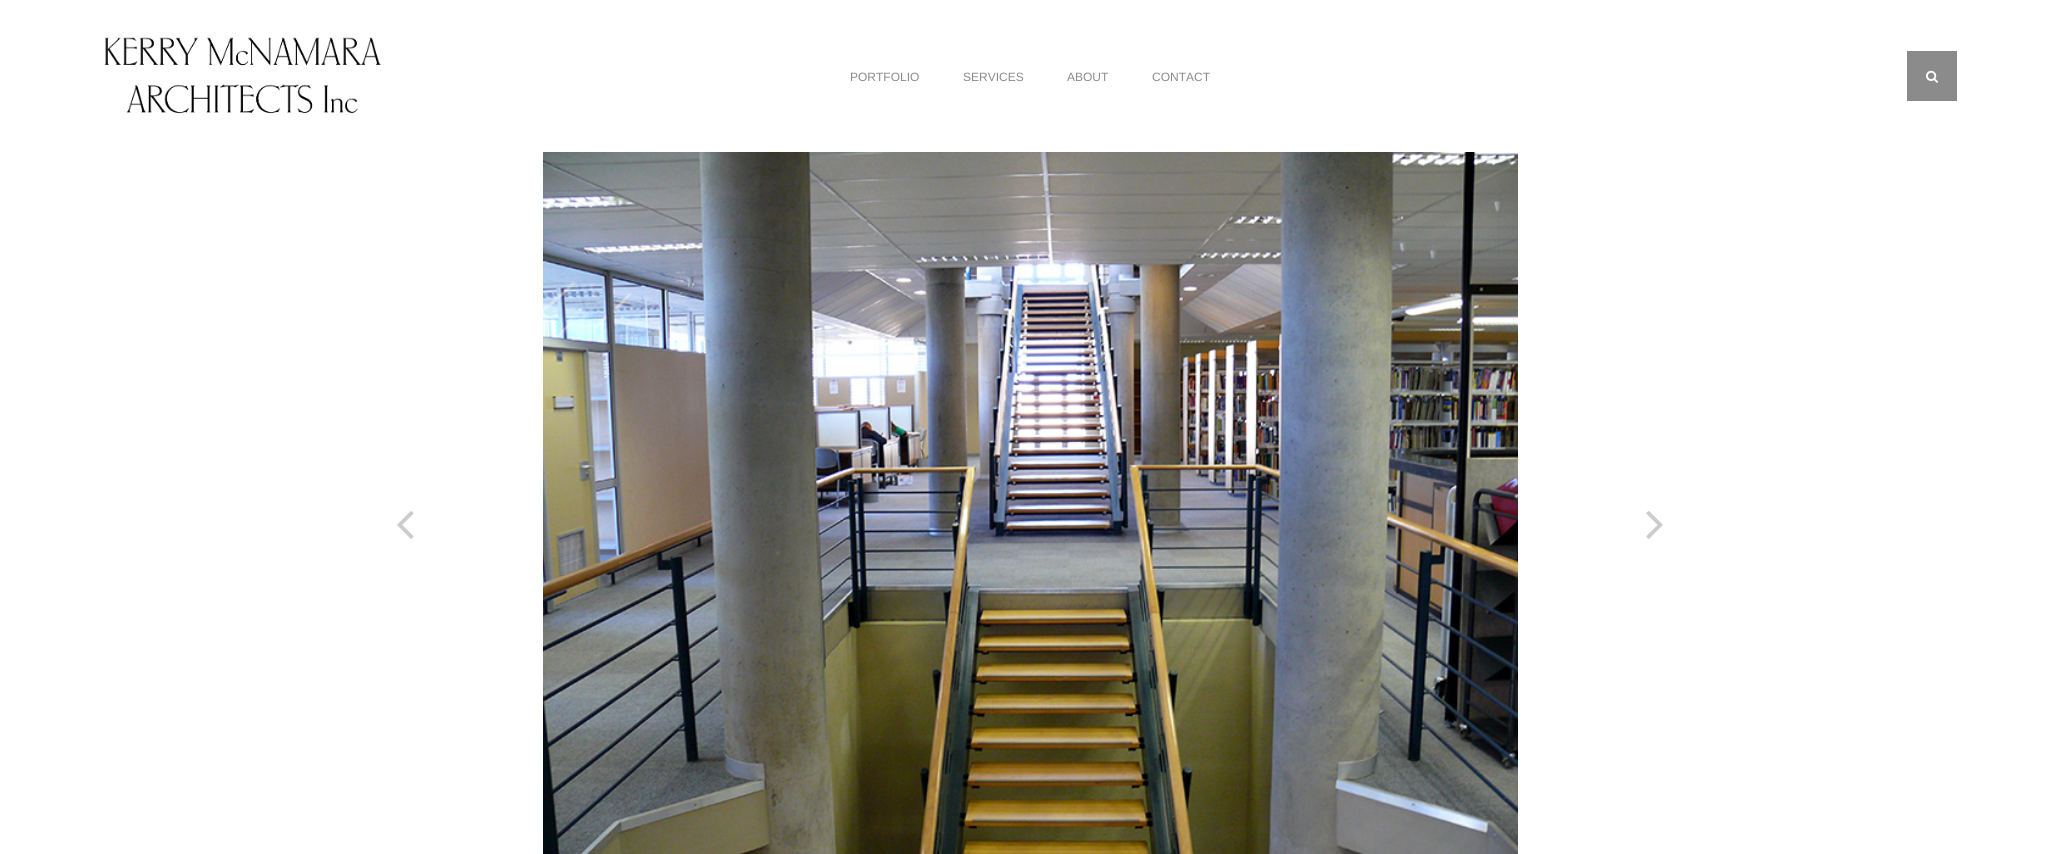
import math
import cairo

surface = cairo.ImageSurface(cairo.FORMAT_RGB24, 2060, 854)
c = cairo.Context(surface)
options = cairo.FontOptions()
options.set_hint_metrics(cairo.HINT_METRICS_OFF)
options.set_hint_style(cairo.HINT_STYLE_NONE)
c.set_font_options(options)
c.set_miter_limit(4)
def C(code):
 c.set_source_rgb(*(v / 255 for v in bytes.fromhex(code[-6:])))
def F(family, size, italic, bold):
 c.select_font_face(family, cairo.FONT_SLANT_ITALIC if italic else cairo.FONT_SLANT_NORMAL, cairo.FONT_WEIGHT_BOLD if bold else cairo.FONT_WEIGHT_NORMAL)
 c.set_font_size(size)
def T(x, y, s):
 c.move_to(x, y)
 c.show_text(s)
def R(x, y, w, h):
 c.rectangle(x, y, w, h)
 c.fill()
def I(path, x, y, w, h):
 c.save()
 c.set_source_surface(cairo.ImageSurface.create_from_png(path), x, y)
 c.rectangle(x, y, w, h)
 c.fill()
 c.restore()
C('ffffff')
c.paint()
I('1.png',104,37,277,77)
F('Liberation Sans',12,0,0)
C('8b8b8b')
T(850,81,'PORTFOLIO')
T(963,81,'SERVICES')
T(1067,81,'ABOUT')
T(1152,81,'CONTACT')
R(1907,51,50,50)
I('2.png',1926,70,12,13)
I('3.png',543,152,975,702)
I('4.png',397,511,17,28)
I('5.png',1646,511,17,28)
surface.write_to_png('o.png')
